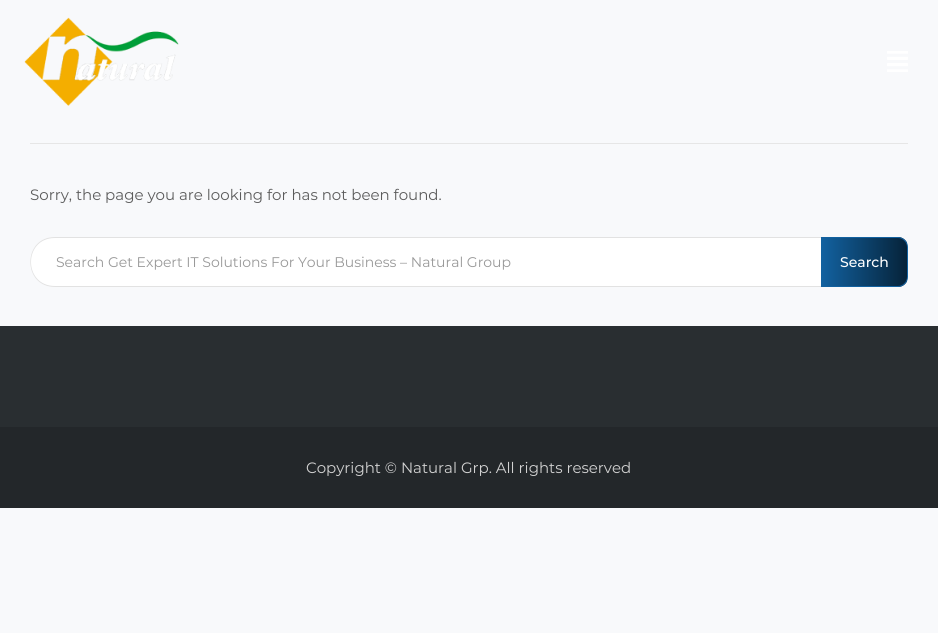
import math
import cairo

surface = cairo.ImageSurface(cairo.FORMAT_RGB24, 938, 633)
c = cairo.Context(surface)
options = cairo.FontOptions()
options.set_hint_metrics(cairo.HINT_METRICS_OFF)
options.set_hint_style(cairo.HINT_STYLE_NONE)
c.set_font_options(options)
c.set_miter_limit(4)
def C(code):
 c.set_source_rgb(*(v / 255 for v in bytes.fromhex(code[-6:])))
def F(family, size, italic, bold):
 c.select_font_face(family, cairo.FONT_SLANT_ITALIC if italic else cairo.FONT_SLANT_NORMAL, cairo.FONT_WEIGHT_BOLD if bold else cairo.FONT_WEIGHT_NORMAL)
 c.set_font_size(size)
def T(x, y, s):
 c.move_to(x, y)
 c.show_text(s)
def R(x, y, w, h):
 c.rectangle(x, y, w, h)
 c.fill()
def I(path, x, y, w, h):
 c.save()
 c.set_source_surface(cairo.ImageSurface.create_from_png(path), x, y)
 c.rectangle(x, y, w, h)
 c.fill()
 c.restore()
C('f8f9fb')
c.paint()
I('1.png',24,17,155,89)
I('2.png',887,51,21,21)
C('e6e6e6')
R(30,143,878,1)
F('Montserrat',15,0,0)
C('5c5c5c')
T(30,200,'Sorry, the page you are looking for has not been found.')
C('ffffff')
c.new_path()
c.move_to(55,237)
c.line_to(821,237)
c.line_to(821,287)
c.line_to(55,287)
c.curve_to(41,287,30,276,30,262)
c.curve_to(30,248,41,237,55,237)
c.close_path()
c.fill()
C('e2e2e2')
c.set_fill_rule(cairo.FILL_RULE_EVEN_ODD)
c.new_path()
c.move_to(55,237)
c.line_to(821,237)
c.line_to(821,287)
c.line_to(55,287)
c.curve_to(22,287,22,237,55,237)
c.close_path()
c.move_to(55,238)
c.line_to(821,238)
c.line_to(821,286)
c.line_to(55,286)
c.curve_to(23,286,23,238,55,238)
c.close_path()
c.fill()
F('Montserrat',14,0,0)
C('999999')
T(56,267,'Search Get Expert IT Solutions For Your Business – Natural Group')
c.save()
c.set_fill_rule(cairo.FILL_RULE_WINDING)
c.new_path()
c.move_to(821,237)
c.line_to(898,237)
c.curve_to(903.5,237,908,241.5,908,247)
c.line_to(908,277)
c.curve_to(908,282.5,903.5,287,898,287)
c.line_to(821,287)
c.close_path()
c.clip()
gradient = cairo.LinearGradient(822,262,907,262)
gradient.add_color_stop_rgba(0,0.071,0.38,0.624,1)
gradient.add_color_stop_rgba(1,0.024,0.137,0.224,1)
c.set_source(gradient)
R(822,237,85,50)
c.restore()
c.new_path()
c.move_to(821.5,237.5)
c.line_to(898,237.5)
c.curve_to(903,237.5,907.5,242,907.5,247)
c.line_to(907.5,277)
c.curve_to(907.5,282,903,286.5,898,286.5)
c.line_to(821.5,286.5)
c.close_path()
C('12619f')
c.set_line_width(1)
c.stroke()
F('Montserrat Medium',14,0,0)
C('ffffff')
T(840,267,'Search')
C('292e31')
R(0,326,938,101)
C('23272a')
R(0,427,938,81)
F('Montserrat',15,0,0)
C('d2d2d2')
T(306,473,'Copyright © Natural Grp. All rights reserved')
surface.write_to_png('o.png')
